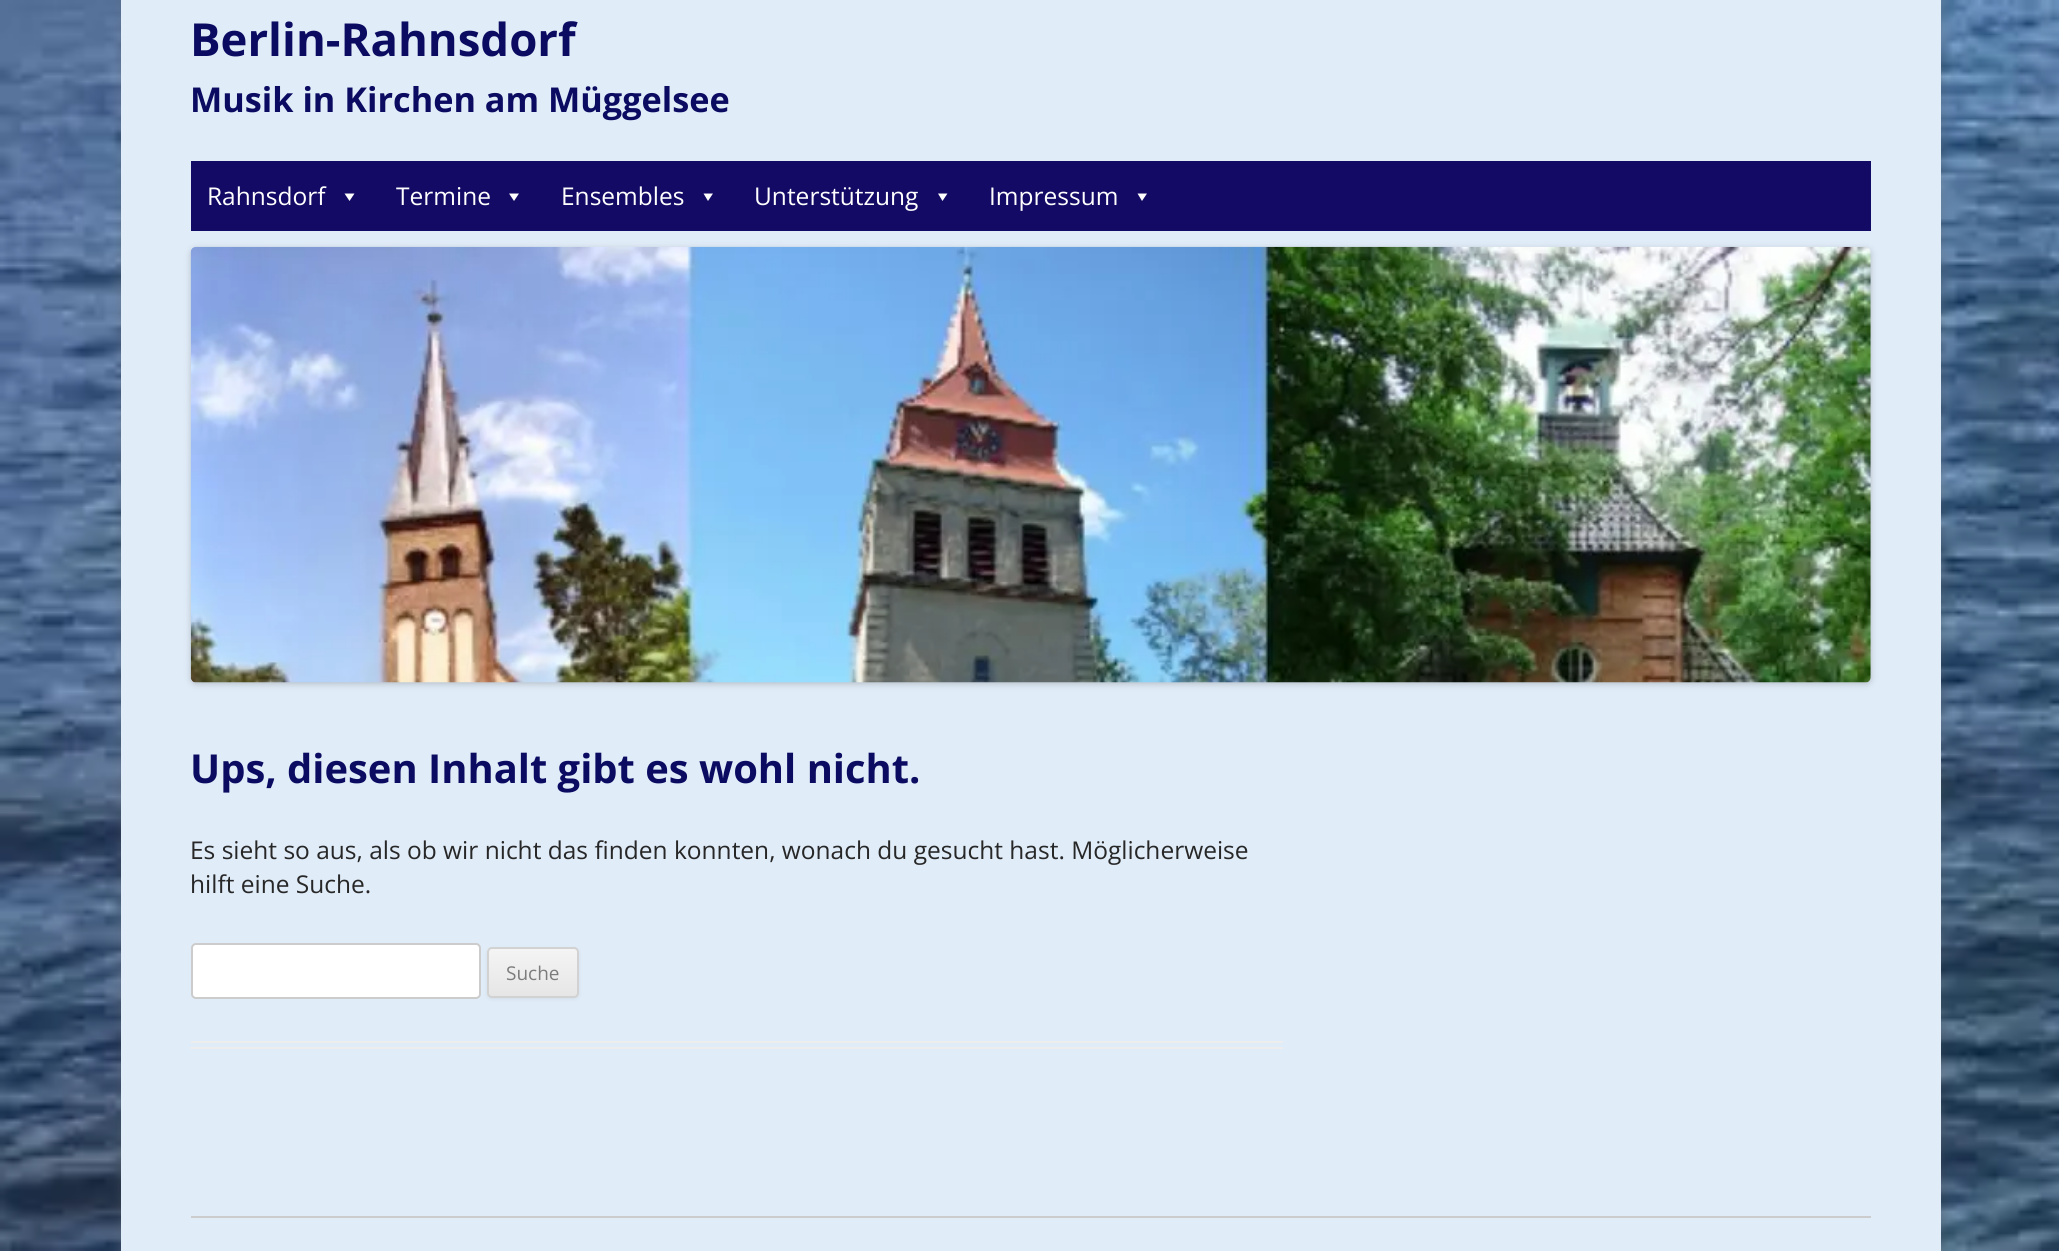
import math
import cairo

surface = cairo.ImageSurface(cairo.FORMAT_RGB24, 2059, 1251)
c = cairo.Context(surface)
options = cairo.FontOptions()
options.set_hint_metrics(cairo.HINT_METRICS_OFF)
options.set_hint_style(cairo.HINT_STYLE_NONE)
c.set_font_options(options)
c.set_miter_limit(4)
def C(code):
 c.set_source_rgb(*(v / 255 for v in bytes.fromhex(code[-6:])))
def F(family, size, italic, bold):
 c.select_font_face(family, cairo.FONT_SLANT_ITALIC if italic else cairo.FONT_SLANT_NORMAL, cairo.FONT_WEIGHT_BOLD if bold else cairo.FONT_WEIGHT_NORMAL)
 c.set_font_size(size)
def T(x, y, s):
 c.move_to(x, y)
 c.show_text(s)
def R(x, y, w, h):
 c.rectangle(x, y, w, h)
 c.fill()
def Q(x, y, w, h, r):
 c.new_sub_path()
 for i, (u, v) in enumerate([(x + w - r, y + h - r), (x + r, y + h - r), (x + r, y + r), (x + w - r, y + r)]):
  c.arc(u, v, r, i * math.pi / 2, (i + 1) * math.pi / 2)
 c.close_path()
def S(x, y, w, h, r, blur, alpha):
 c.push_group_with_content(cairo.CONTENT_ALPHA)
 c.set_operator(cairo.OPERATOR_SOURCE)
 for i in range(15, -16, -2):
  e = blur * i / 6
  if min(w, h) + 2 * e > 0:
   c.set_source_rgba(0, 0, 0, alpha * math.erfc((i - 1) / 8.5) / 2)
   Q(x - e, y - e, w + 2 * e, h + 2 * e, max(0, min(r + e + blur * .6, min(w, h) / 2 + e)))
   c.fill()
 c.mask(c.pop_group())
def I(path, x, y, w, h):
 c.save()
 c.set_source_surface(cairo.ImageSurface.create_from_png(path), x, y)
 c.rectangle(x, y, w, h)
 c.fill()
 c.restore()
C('ffffff')
c.paint()
I('1.png',0,0,2059,1251)
C('646464')
S(121,-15,1820,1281,0,5,.3)
C('e0ecf8')
R(121,0,1820,1251)
F('Open Sans',45.5,0,1)
C('0b0b61')
T(190,56,'Berlin-Rahnsdorf')
F('Open Sans',34.25,0,1)
T(190,112,'Musik in Kirchen am Müggelsee')
C('120a64')
R(191,161,1680,70)
F('Open Sans',24.5,0,0)
C('ffffff')
T(207,205,'Rahnsdorf')
c.new_path()
c.move_to(354.5,193.5)
c.line_to(349.5,201)
c.line_to(344.5,193.5)
c.close_path()
c.fill()
T(396,205,'Termine')
c.new_path()
c.move_to(519,193.5)
c.line_to(514,201)
c.line_to(509,193.5)
c.close_path()
c.fill()
T(561,205,'Ensembles')
c.new_path()
c.move_to(713,193.5)
c.line_to(708,201)
c.line_to(703.5,193.5)
c.close_path()
c.fill()
T(754,205,'Unterstützung')
c.new_path()
c.move_to(947.5,193.5)
c.line_to(942.5,201)
c.line_to(938,193.5)
c.close_path()
c.fill()
T(989,205,'Impressum')
c.new_path()
c.move_to(1147,193.5)
c.line_to(1142,201)
c.line_to(1137.5,193.5)
c.close_path()
c.fill()
C('000000')
S(191,249,1680,435,5,3.5,.2)
I('2.png',190,246,1681,437)
C('ededed')
R(191,1041,1092,2)
R(191,1047,1092,2)
F('Open Sans',39.9,0,1)
C('0b0b61')
T(190,783,'Ups, diesen Inhalt gibt es wohl nicht.')
F('Open Sans',24.5,0,0)
C('272727')
T(190,859,'Es sieht so aus, als ob wir nicht das finden konnten, wonach du gesucht hast. Möglicherweise')
T(190,893,'hilft eine Suche.')
C('ffffff')
Q(192,944,288,54,4)
c.fill_preserve()
C('cccccc')
c.stroke()
C('404040')
S(487,949,92,50,5,2,.1)
c.save()
Q(487,947,92,51,5)
c.clip()
gradient = cairo.LinearGradient(533,949,533,996)
gradient.add_color_stop_rgba(0,0.957,0.957,0.957,1)
gradient.add_color_stop_rgba(1,0.902,0.902,0.902,1)
c.set_source(gradient)
R(487,949,92,47)
c.restore()
Q(488,948,90,49,4)
C('d2d2d2')
c.stroke()
F('Open Sans',19,0,0)
C('7c7c7c')
T(506,980,'Suche')
C('cccccc')
R(191,1216,1680,2)
surface.write_to_png('o.png')
